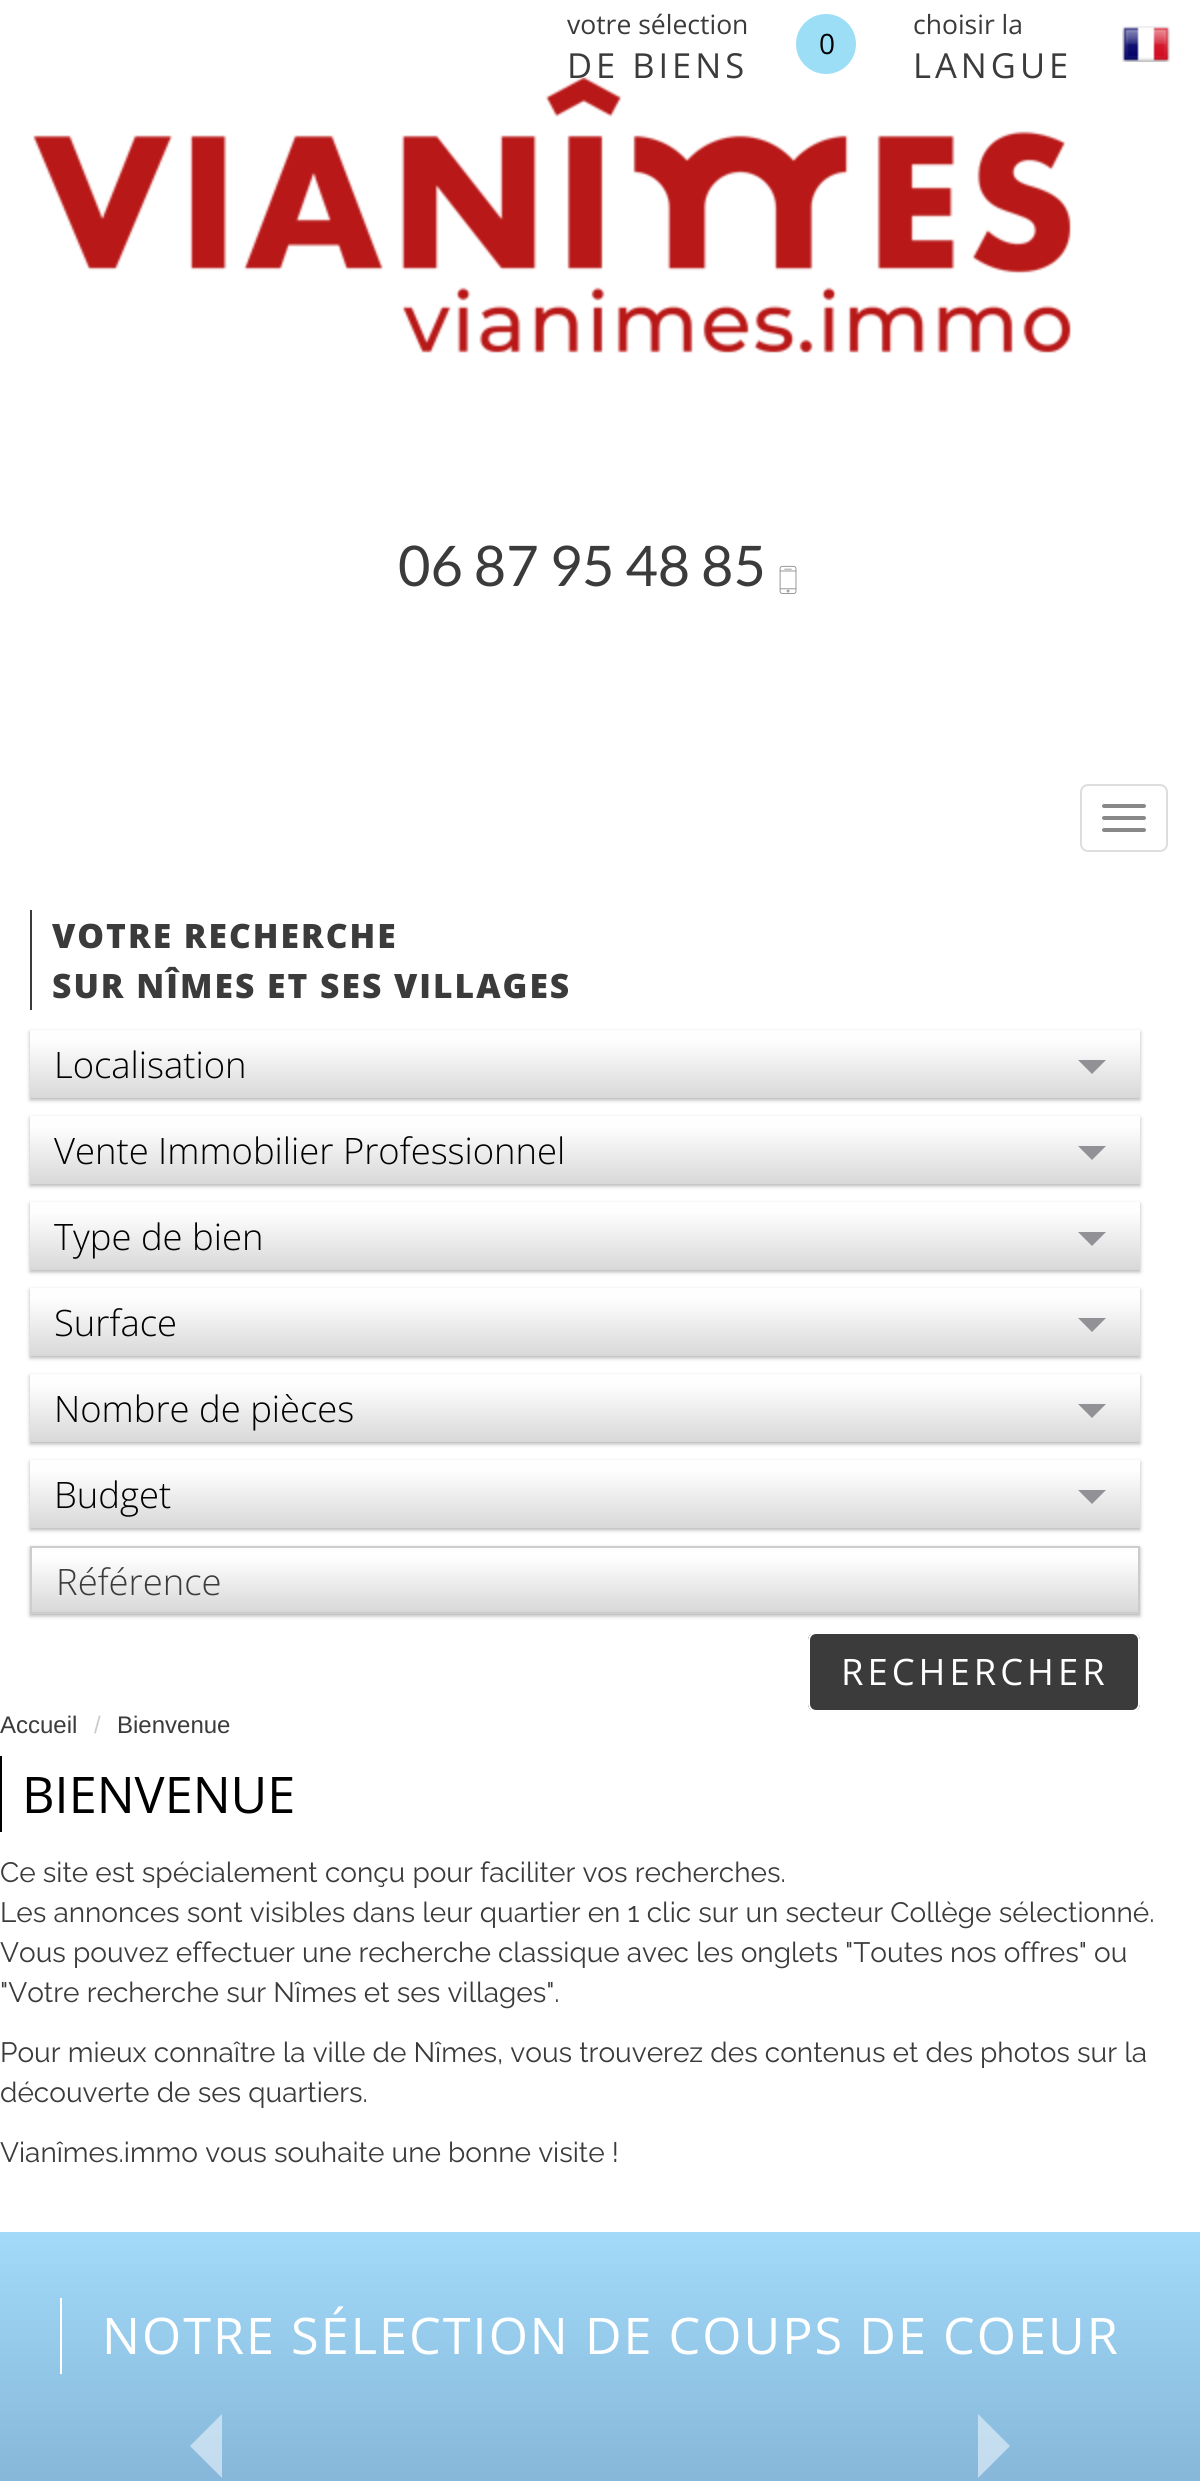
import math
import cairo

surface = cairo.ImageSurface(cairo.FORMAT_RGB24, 1200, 2481)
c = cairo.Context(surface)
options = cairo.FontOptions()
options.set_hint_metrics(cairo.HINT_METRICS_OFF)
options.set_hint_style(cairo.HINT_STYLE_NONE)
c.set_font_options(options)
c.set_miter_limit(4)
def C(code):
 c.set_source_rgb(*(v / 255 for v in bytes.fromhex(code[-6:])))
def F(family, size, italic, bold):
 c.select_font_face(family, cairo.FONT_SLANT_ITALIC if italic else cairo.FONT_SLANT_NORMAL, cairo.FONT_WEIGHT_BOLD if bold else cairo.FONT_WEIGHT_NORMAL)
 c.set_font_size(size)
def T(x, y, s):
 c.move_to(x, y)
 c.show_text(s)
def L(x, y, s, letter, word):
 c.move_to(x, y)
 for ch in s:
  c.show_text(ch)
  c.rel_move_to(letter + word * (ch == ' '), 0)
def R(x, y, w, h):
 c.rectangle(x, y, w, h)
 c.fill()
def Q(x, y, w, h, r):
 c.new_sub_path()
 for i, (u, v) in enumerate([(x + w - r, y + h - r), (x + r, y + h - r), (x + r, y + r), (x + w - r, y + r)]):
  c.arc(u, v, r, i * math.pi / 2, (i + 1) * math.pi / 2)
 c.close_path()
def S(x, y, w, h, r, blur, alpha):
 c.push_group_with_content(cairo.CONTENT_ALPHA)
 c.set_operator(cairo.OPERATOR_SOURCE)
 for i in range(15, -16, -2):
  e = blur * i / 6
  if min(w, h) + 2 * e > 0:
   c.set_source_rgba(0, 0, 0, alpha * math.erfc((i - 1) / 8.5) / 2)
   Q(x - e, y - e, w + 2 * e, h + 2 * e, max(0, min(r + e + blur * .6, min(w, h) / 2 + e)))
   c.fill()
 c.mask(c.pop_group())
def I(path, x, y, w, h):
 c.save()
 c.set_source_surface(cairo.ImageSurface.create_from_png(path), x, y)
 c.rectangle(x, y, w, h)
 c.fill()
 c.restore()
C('ffffff')
c.paint()
F('Open Sans',26.5,0,0)
C('3b3b3b')
T(567,34,'votre sélection')
F('Open Sans',34.5,0,0)
L(567,78,'DE BIENS',4,0)
C('9ddef7')
c.new_path()
c.arc(826,44,30,0,2 * math.pi)
c.fill()
F('Open Sans',28,0,0)
C('000000')
T(819,54,'0')
F('Open Sans',26.5,0,0)
C('3b3b3b')
T(913,34,'choisir la')
F('Open Sans',34.5,0,0)
L(913,78,'LANGUE',4,0)
I('1.png',1122,26,48,36)
I('2.png',33,77,1038,276)
F('Lato',56,0,0)
T(398,586,'06 87 95 48 85')
I('3.png',779,565,18,29)
Q(1081,785,86,66,7)
C('dddddd')
c.stroke()
C('888888')
Q(1102,804,44,4,2)
c.fill()
Q(1102,816,44,4,2)
c.fill()
Q(1102,828,44,4,2)
c.fill()
C('3b3b3b')
R(30,910,2,100)
F('Open Sans ExtraBold',33.6,0,0)
L(52,948,'VOTRE RECHERCHE',2,0)
L(52,998,'SUR NÎMES ET SES VILLAGES',2,0)
C('b7b5b5')
S(30,1032,1110,68,0,2,1)
gradient = cairo.LinearGradient(585,1030,585,1098)
gradient.add_color_stop_rgba(.15,0.996,0.996,0.996,1)
gradient.add_color_stop_rgba(1,0.847,0.847,0.847,1)
c.set_source(gradient)
R(30,1030,1110,68)
F('Open Sans Light',36.4,0,0)
C('000000')
T(54,1078,'Localisation')
C('929196')
c.new_path()
c.move_to(1078,1060)
c.line_to(1106,1060)
c.line_to(1092,1074)
c.close_path()
c.fill()
C('b7b5b5')
S(30,1118,1110,68,0,2,1)
gradient = cairo.LinearGradient(585,1116,585,1184)
gradient.add_color_stop_rgba(.15,0.996,0.996,0.996,1)
gradient.add_color_stop_rgba(1,0.847,0.847,0.847,1)
c.set_source(gradient)
R(30,1116,1110,68)
C('000000')
T(54,1164,'Vente Immobilier Professionnel')
C('929196')
c.new_path()
c.move_to(1078,1146)
c.line_to(1106,1146)
c.line_to(1092,1160)
c.close_path()
c.fill()
C('b7b5b5')
S(30,1204,1110,68,0,2,1)
gradient = cairo.LinearGradient(585,1202,585,1270)
gradient.add_color_stop_rgba(.15,0.996,0.996,0.996,1)
gradient.add_color_stop_rgba(1,0.847,0.847,0.847,1)
c.set_source(gradient)
R(30,1202,1110,68)
C('000000')
T(54,1250,'Type de bien')
C('929196')
c.new_path()
c.move_to(1078,1232)
c.line_to(1106,1232)
c.line_to(1092,1246)
c.close_path()
c.fill()
C('b7b5b5')
S(30,1290,1110,68,0,2,1)
gradient = cairo.LinearGradient(585,1288,585,1356)
gradient.add_color_stop_rgba(.15,0.996,0.996,0.996,1)
gradient.add_color_stop_rgba(1,0.847,0.847,0.847,1)
c.set_source(gradient)
R(30,1288,1110,68)
C('000000')
T(54,1336,'Surface')
C('929196')
c.new_path()
c.move_to(1078,1318)
c.line_to(1106,1318)
c.line_to(1092,1332)
c.close_path()
c.fill()
C('b7b5b5')
S(30,1376,1110,68,0,2,1)
gradient = cairo.LinearGradient(585,1374,585,1442)
gradient.add_color_stop_rgba(.15,0.996,0.996,0.996,1)
gradient.add_color_stop_rgba(1,0.847,0.847,0.847,1)
c.set_source(gradient)
R(30,1374,1110,68)
C('000000')
T(54,1422,'Nombre de pièces')
C('929196')
c.new_path()
c.move_to(1078,1404)
c.line_to(1106,1404)
c.line_to(1092,1418)
c.close_path()
c.fill()
C('b7b5b5')
S(30,1462,1110,68,0,2,1)
gradient = cairo.LinearGradient(585,1460,585,1528)
gradient.add_color_stop_rgba(.15,0.996,0.996,0.996,1)
gradient.add_color_stop_rgba(1,0.847,0.847,0.847,1)
c.set_source(gradient)
R(30,1460,1110,68)
C('000000')
T(54,1508,'Budget')
C('929196')
c.new_path()
c.move_to(1078,1490)
c.line_to(1106,1490)
c.line_to(1092,1504)
c.close_path()
c.fill()
C('b7b5b5')
S(30,1548,1110,68,0,2,1)
gradient = cairo.LinearGradient(585,1548,585,1612)
gradient.add_color_stop_rgba(.15,0.996,0.996,0.996,1)
gradient.add_color_stop_rgba(1,0.847,0.847,0.847,1)
c.set_source(gradient)
R(32,1548,1106,64)
c.rectangle(31,1547,1108,66)
C('cccccc')
c.stroke()
C('3b3b3b')
T(56,1595,'Référence')
c.save()
Q(808,1632,332,80,8)
c.clip()
R(808,1634,332,76)
c.restore()
Q(809,1633,330,78,7)
C('ffffff')
c.stroke()
F('Open Sans',36.4,0,0)
L(841,1685,'RECHERCHER',4,0)
F('Liberation Sans',24,0,0)
C('3b3b3b')
T(0,1733,'Accueil')
C('cccccc')
T(94,1733,'/')
C('3b3b3b')
T(117,1733,'Bienvenue')
C('000000')
R(0,1756,2,76)
F('Open Sans',50.4,0,0)
T(22,1813,'BIENVENUE')
F('Raleway',28,0,0)
C('3b3b3b')
T(0,1882,'Ce site est spécialement conçu pour faciliter vos recherches.')
T(0,1922,'Les annonces sont visibles dans leur quartier en 1 clic sur un secteur Collège sélectionné.')
T(0,1962,'Vous pouvez effectuer une recherche classique avec les onglets "Toutes nos offres" ou')
T(0,2002,'"Votre recherche sur Nîmes et ses villages".')
T(0,2062,'Pour mieux connaître la ville de Nîmes, vous trouverez des contenus et des photos sur la')
T(0,2102,'découverte de ses quartiers.')
T(0,2162,'Vianîmes.immo vous souhaite une bonne visite !')
gradient = cairo.LinearGradient(600,2232,600,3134)
gradient.add_color_stop_rgba(0,0.635,0.855,0.973,1)
gradient.add_color_stop_rgba(1,0.247,0.357,0.541,1)
c.set_source(gradient)
R(0,2232,1200,249)
C('ffffff')
R(60,2298,2,76)
F('Open Sans',50.4,0,0)
L(102,2354,'NOTRE SÉLECTION DE COUPS DE COEUR',2,0)
c.set_source_rgba(1,1,1,0.5)
c.new_path()
c.move_to(222,2414)
c.line_to(222,2478)
c.line_to(190,2446)
c.close_path()
c.fill()
c.new_path()
c.move_to(978,2478)
c.line_to(978,2414)
c.line_to(1010,2446)
c.close_path()
c.fill()
surface.write_to_png('o.png')
